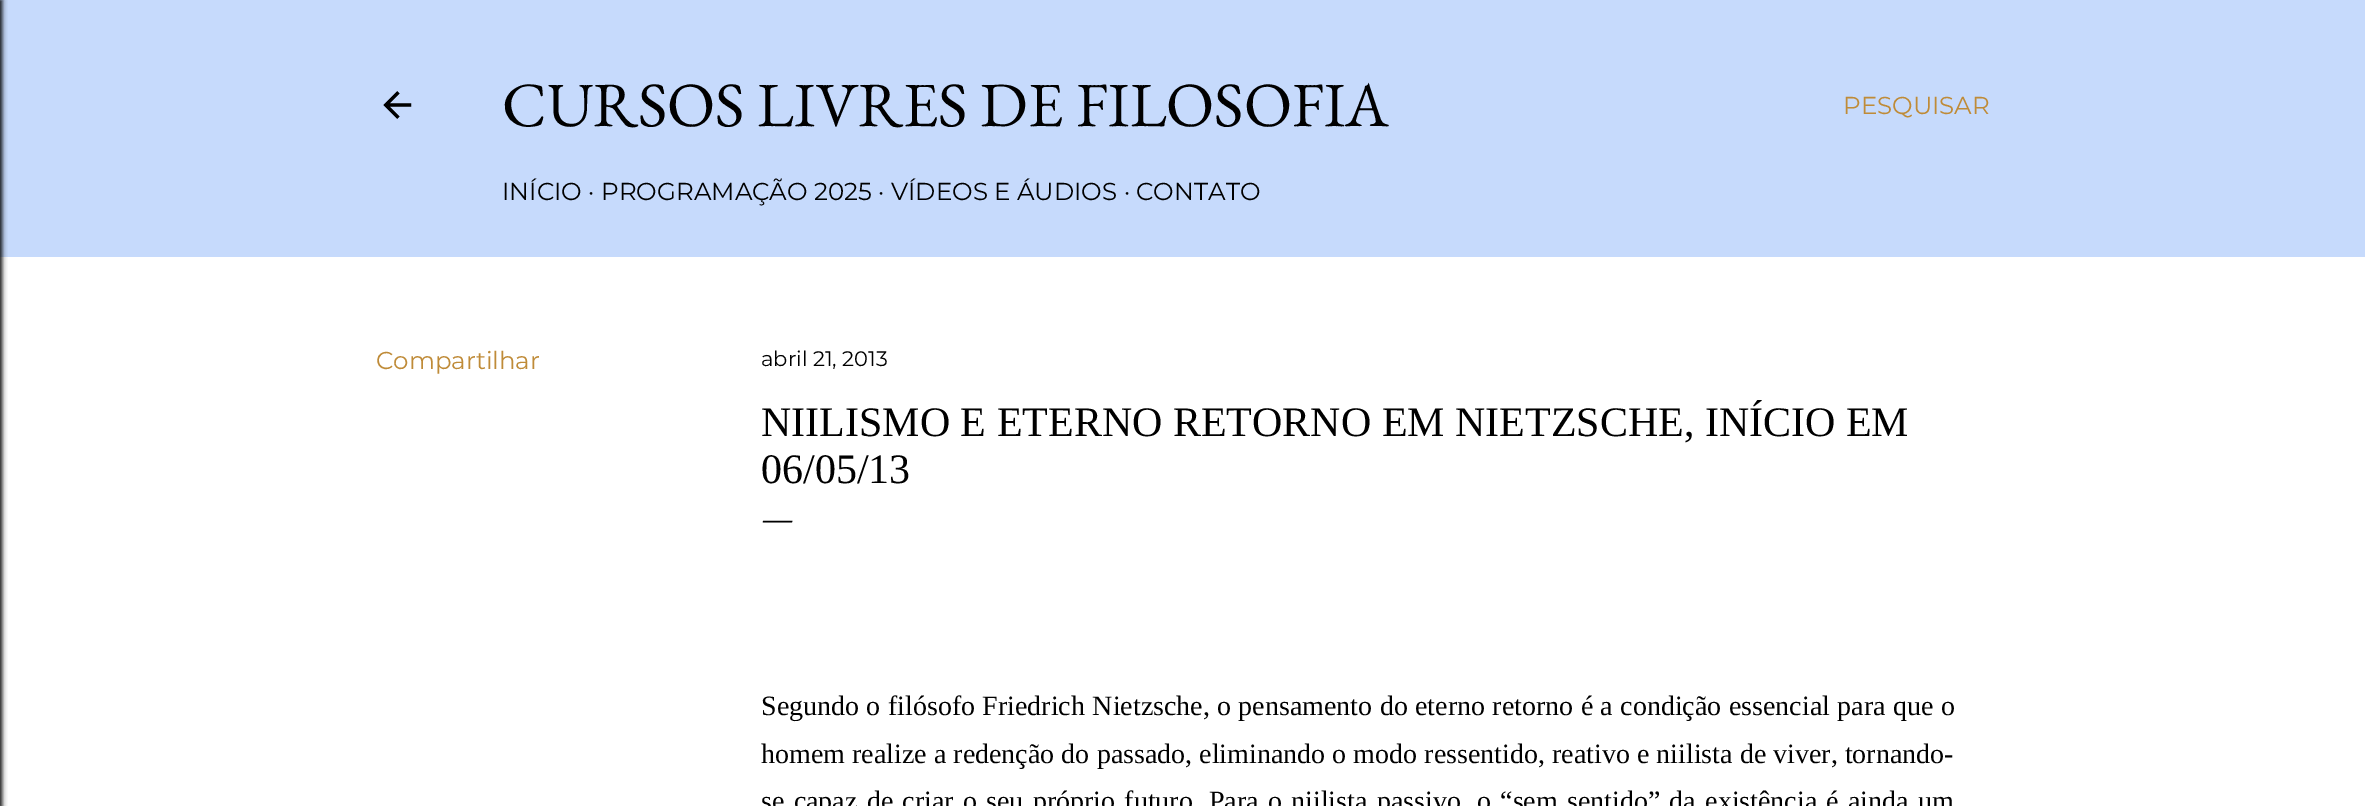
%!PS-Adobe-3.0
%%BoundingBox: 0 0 2365 806
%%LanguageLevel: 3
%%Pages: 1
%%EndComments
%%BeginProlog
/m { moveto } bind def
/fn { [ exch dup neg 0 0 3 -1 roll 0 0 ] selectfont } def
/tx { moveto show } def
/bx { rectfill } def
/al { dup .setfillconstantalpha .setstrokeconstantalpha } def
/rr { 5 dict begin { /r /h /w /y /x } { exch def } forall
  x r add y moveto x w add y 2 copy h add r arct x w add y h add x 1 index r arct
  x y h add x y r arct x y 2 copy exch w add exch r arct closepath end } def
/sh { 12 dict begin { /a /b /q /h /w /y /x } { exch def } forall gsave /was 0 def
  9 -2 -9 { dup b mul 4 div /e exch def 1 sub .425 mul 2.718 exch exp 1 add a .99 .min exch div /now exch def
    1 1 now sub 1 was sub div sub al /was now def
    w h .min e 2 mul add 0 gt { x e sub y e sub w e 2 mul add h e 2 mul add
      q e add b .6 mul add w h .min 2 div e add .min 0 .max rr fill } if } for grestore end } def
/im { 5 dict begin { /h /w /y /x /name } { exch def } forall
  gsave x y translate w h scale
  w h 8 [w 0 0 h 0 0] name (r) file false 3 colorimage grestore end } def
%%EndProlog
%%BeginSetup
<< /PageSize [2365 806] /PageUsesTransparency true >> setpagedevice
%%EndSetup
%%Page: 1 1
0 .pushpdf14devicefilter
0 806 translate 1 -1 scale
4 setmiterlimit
1 setgray
0 0 2365 806 bx
0.776 0.855 0.988 setrgbcolor
0 0 2365 257 bx
0 setgray
-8 0 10 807 0 2.5 1 sh
(image0.raw) 383 91 29 28 im
/EBGaramond-Regular 63 fn
(CURSOS LIVRES DE FILOSOFIA) 502 126 tx
/Montserrat-Regular 24.5 fn
(INÍCIO · PROGRAMAÇÃO 2025 · VÍDEOS E ÁUDIOS · CONTATO) 502 200 tx
0.749 0.545 0.22 setrgbcolor
(PESQUISAR) 1843 114 tx
(Compartilhar) 376 369 tx
/Montserrat-Regular 21 fn
0 setgray
(abril 21, 2013) 761 366 tx
/LiberationSerif-Regular 42 fn
(NIILISMO E ETERNO RETORNO EM NIETZSCHE, INÍCIO EM) 761 436 tx
(06/05/13) 761 483 tx
/EBGaramond-Regular 35 fn
(—) 761 529 tx
/LiberationSerif-Regular 28 fn
761 715 m 0.4 0 32 (Segundo o filósofo Friedrich Nietzsche, o pensamento do eterno retorno é a condição essencial para que o) widthshow
761 763 m 0.1 0 32 (homem realize a redenção do passado, eliminando o modo ressentido, reativo e niilista de viver, tornando-) widthshow
761 810 m 2.25 0 32 (se capaz de criar o seu próprio futuro. Para o niilista passivo, o “sem sentido” da existência é ainda um) widthshow
.poppdf14devicefilter showpage
%%EOF
